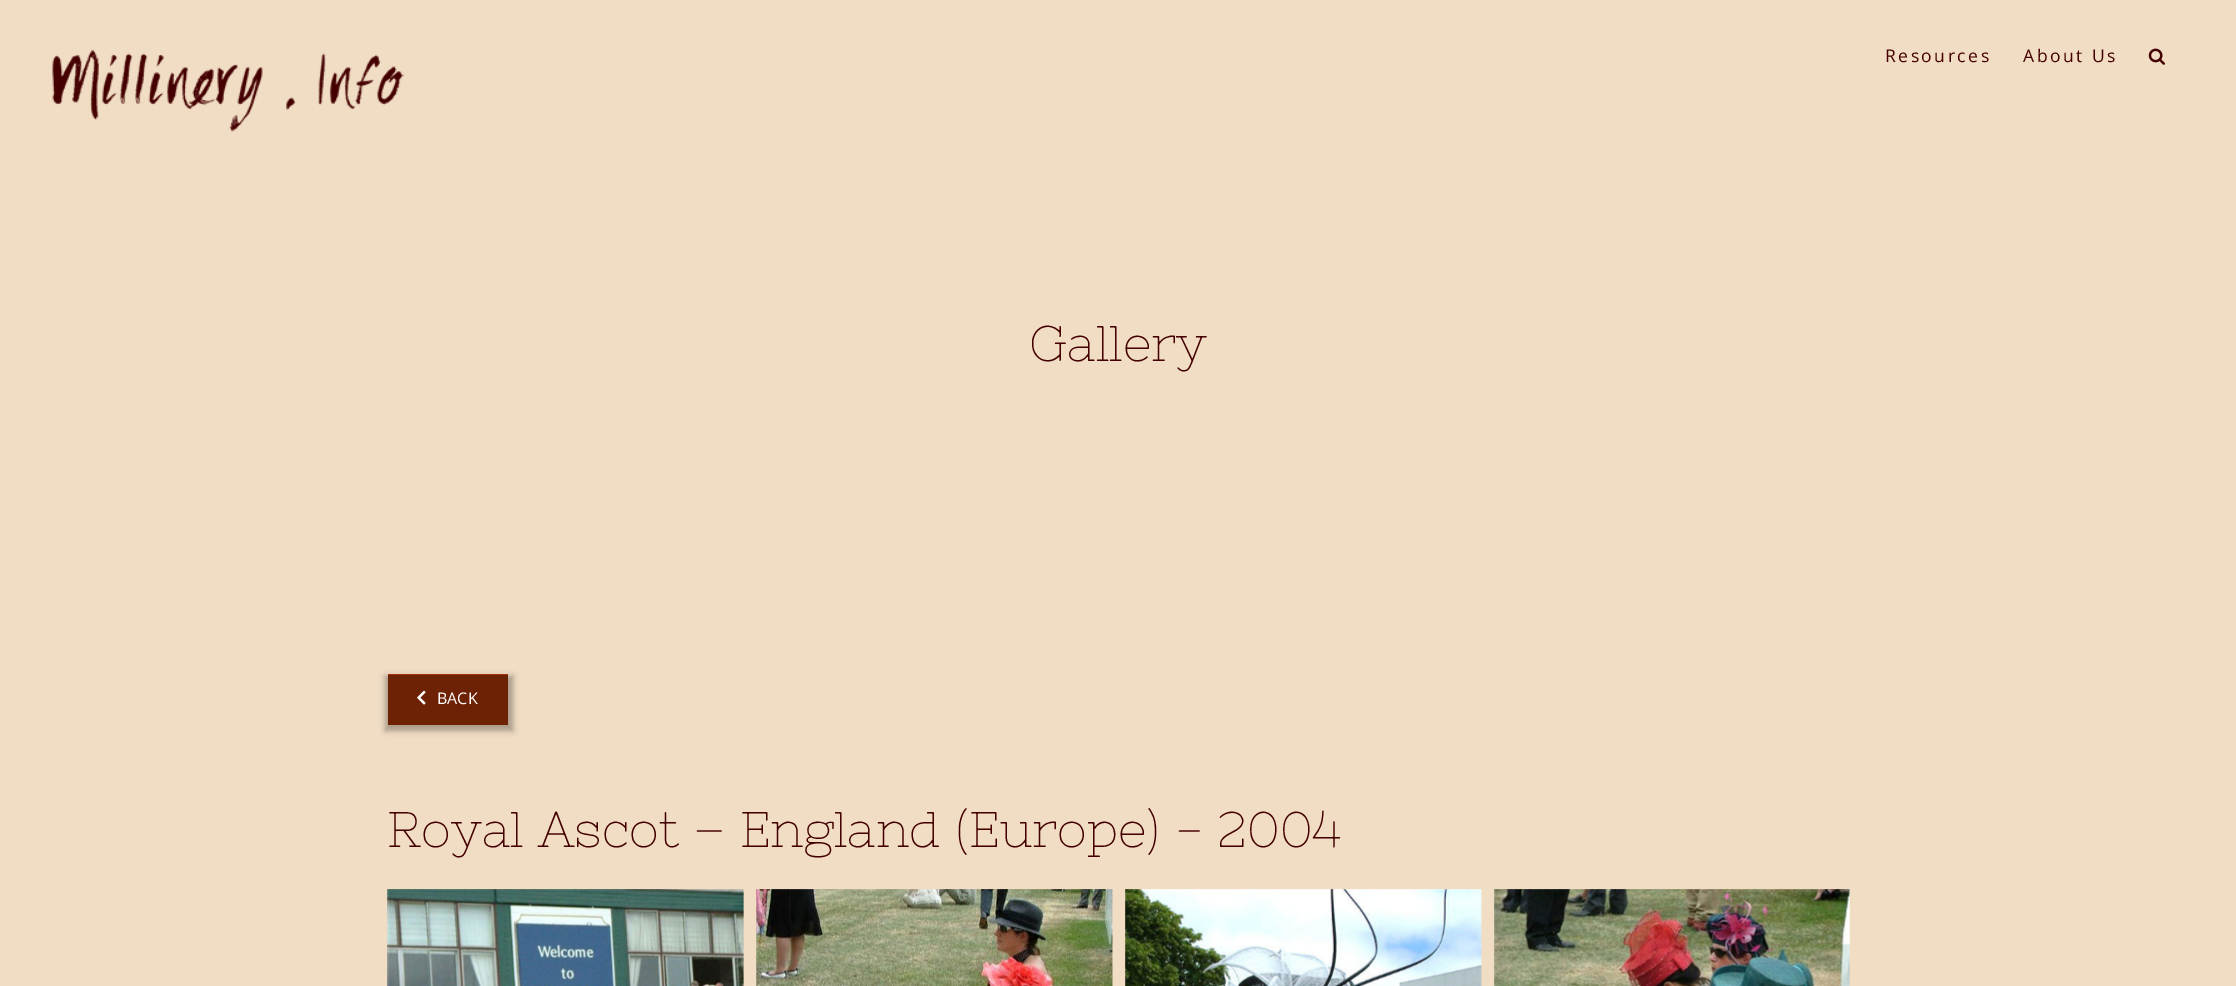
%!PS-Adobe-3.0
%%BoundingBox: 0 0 2236 986
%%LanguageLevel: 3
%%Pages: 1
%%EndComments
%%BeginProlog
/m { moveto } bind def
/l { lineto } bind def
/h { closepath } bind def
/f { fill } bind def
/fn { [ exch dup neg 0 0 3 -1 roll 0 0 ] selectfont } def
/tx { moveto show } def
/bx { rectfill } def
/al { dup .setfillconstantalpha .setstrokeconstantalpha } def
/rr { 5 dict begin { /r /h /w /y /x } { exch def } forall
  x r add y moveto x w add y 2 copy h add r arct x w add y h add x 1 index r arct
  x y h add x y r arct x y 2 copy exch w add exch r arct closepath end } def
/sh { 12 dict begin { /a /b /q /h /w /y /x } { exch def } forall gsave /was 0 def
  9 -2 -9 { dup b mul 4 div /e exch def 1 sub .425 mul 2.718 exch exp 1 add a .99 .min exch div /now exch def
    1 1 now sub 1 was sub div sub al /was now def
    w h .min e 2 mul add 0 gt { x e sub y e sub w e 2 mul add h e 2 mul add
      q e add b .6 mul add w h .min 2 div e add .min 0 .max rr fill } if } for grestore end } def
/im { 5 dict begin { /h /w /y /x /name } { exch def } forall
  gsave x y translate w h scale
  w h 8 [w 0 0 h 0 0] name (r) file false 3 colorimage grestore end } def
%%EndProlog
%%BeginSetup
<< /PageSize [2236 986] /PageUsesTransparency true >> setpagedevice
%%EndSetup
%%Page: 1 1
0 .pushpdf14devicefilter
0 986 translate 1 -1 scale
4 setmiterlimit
0.945 0.867 0.769 setrgbcolor
0 0 2236 986 bx
(image0.raw) 52 49 352 83 im
/OpenSans-Regular 17.5 fn
0.267 0 0 setrgbcolor
1885 62 m 2.5 0 (Resources) ashow
2023 62 m 2.5 0 (About Us) ashow
(image1.raw) 2148 48 17 17 im
/NixieOne-Regular 50 fn
(Gallery) 1029 361 tx
0 setgray
385 676 128 55 0 3 0.3 sh
0.427 0.129 0.02 setrgbcolor
388 721 m 388 725 l 508 725 l 508 678 l 508 721 l h f
388 675 120 46 bx
0.647 0.192 0.024 setrgbcolor
388 674 120 1 bx
(image2.raw) 417 690 9 15 im
/OpenSans-Regular 16 fn
1 setgray
(BACK) 437 704 tx
/NixieOne-Regular 50 fn
0.267 0 0 setrgbcolor
(Royal Ascot – England \(Europe\) - 2004) 387 847 tx
(image3.raw) 387 889 357 97 im
(image4.raw) 756 889 357 97 im
(image5.raw) 1125 889 357 97 im
(image6.raw) 1494 889 356 97 im
.poppdf14devicefilter showpage
%%EOF
